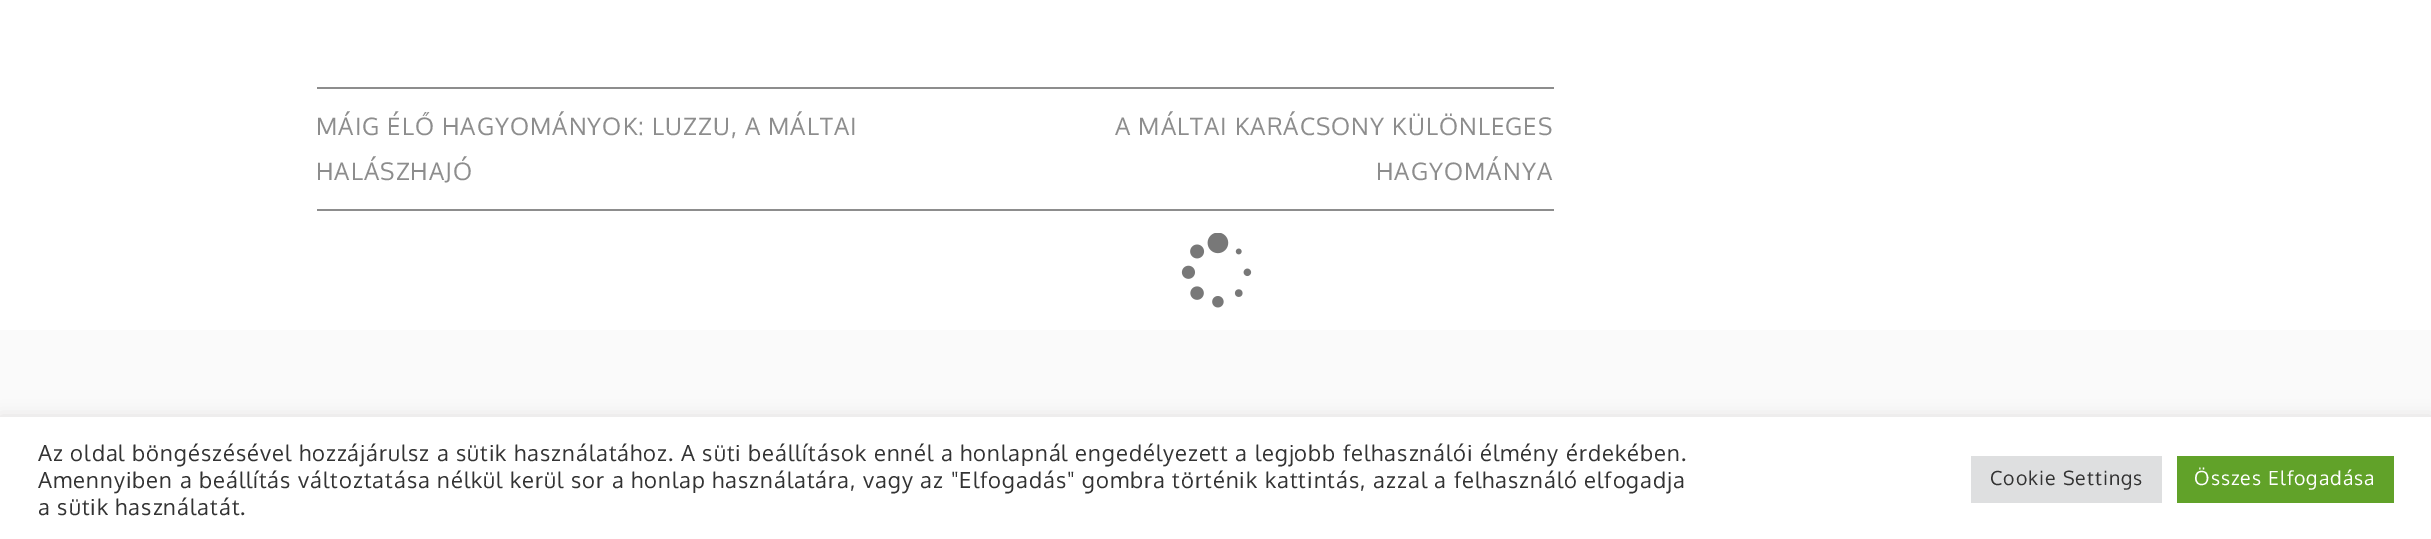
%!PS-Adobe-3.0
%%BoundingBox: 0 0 2431 539
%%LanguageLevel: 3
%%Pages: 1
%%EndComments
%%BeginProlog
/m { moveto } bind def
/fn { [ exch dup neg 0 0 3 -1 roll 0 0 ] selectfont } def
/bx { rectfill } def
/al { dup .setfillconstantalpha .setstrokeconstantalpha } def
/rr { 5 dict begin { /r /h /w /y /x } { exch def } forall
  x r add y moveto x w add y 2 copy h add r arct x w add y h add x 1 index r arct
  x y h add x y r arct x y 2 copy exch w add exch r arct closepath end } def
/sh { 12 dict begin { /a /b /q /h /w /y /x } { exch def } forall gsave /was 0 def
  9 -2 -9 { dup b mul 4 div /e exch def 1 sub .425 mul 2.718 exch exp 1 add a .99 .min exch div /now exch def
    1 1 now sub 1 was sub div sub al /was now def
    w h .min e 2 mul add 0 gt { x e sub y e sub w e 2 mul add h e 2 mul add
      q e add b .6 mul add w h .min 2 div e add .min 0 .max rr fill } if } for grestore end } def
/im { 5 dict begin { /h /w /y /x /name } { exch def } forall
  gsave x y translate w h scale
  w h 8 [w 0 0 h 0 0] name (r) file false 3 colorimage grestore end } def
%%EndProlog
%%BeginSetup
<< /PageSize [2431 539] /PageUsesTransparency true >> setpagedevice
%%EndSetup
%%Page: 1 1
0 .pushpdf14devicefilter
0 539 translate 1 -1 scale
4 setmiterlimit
1 setgray
0 0 2431 539 bx
0.553 setgray
317 87 1237 2 bx
317 209 1237 2 bx
/Oxygen-Regular 24 fn
316 135 m 1.05 0 (MÁIG ÉLŐ HAGYOMÁNYOK: LUZZU, A MÁLTAI) ashow
316 180 m 1.05 0 (HALÁSZHAJÓ) ashow
1115 135 m 1.05 0 (A MÁLTAI KARÁCSONY KÜLÖNLEGES) ashow
1376 180 m 1.05 0 (HAGYOMÁNYA) ashow
(image0.raw) 1181 233 71 75 im
0.98 setgray
0 330 2431 87 bx
0.675 0.671 0.671 setrgbcolor
0 416 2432 123 0 7.5 0.3 sh
1 setgray
0 417 2431 122 bx
/Oxygen-Regular 22 fn
0.2 setgray
38 461 m 1.05 0 (Az oldal böngészésével hozzájárulsz a sütik használatához. A süti beállítások ennél a honlapnál engedélyezett a legjobb felhasználói élmény érdekében.) ashow
38 488 m 1.05 0 (Amennyiben a beállítás változtatása nélkül kerül sor a honlap használatára, vagy az "Elfogadás" gombra történik kattintás, azzal a felhasználó elfogadja) ashow
38 515 m 1.05 0 (a sütik használatát.) ashow
0.871 0.875 0.878 setrgbcolor
1971 456 191 47 bx
/Oxygen-Regular 19.5 fn
0.2 setgray
1990 485 m 1.05 0 (Cookie Settings) ashow
0.38 0.635 0.161 setrgbcolor
2177 456 217 47 bx
1 setgray
2194 485 m 1.05 0 (Összes Elfogadása) ashow
.poppdf14devicefilter showpage
%%EOF
